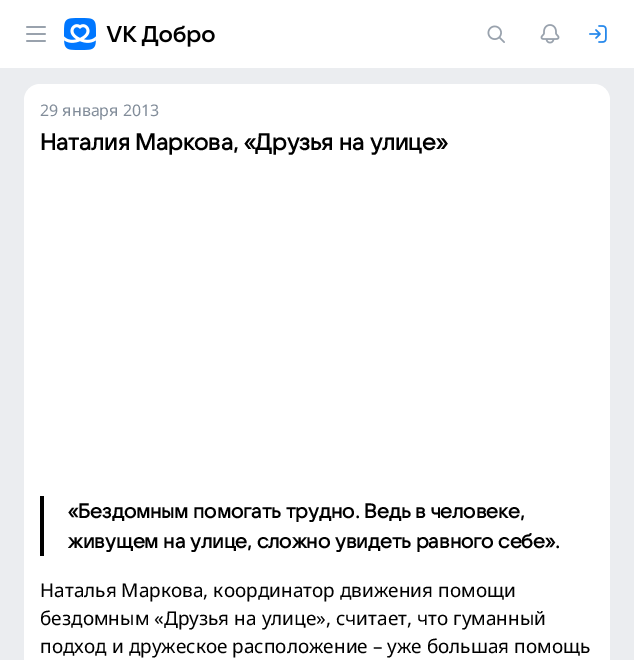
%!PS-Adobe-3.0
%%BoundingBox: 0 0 634 660
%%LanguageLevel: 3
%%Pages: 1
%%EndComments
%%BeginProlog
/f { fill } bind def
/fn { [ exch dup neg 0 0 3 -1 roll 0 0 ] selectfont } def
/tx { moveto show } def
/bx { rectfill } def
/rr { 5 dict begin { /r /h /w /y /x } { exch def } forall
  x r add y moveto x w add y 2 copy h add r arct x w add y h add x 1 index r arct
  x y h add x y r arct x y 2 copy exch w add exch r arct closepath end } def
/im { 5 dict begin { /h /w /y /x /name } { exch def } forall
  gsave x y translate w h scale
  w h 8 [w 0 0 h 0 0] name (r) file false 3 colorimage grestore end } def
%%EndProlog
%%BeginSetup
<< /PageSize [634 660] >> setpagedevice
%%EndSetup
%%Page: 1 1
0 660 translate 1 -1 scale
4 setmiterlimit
0.922 0.929 0.941 setrgbcolor
0 0 634 660 bx
1 setgray
0 0 634 68 bx
(image0.raw) 26 26 20 16 im
(image1.raw) 64 18 151 32 im
(image2.raw) 487 25 18 18 im
(image3.raw) 540 24 20 20 im
(image4.raw) 589 25 18 18 im
24 84 586 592 16 rr f
/NotoSans-Regular 16 fn
0.506 0.549 0.6 setrgbcolor
(29 января 2013) 40 116 tx
/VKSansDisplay-Bold 23 fn
0 setgray
(Наталия Маркова, «Друзья на улице») 40 150 tx
40 496 4 60 bx
/VKSansDisplay-Bold 20 fn
(«Бездомным помогать трудно. Ведь в человеке,) 68 518 tx
(живущем на улице, сложно увидеть равного себе».) 68 548 tx
/NotoSans-Regular 19 fn
(Наталья Маркова, координатор движения помощи) 40 597 tx
(бездомным «Друзья на улице», считает, что гуманный) 40 625 tx
(подход и дружеское расположение – уже большая помощь) 40 653 tx
showpage
%%EOF
